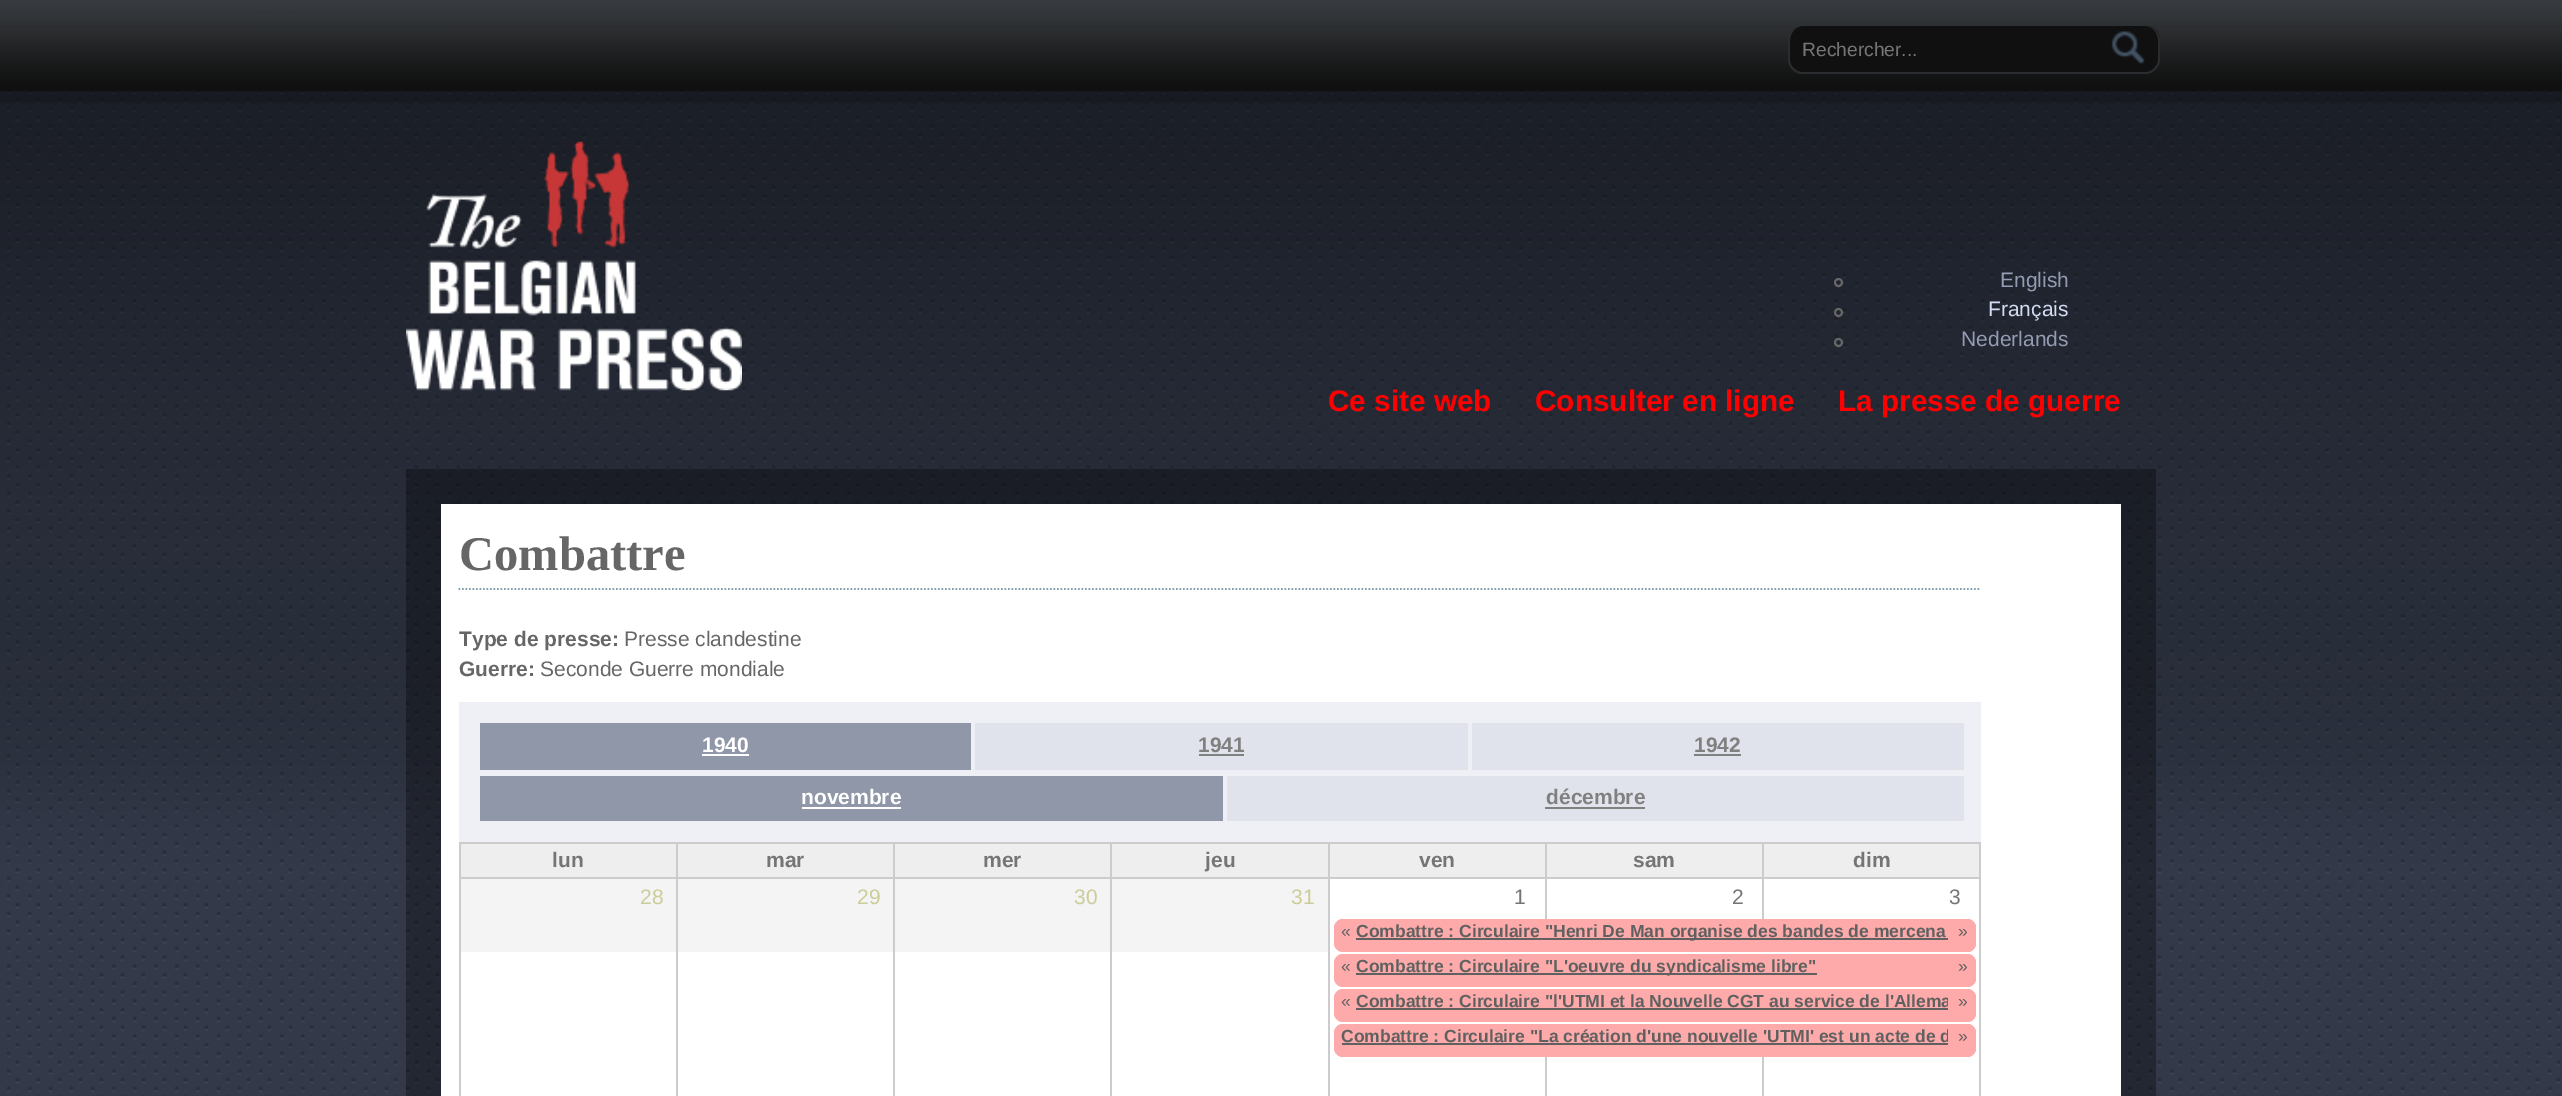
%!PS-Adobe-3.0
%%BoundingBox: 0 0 2562 1096
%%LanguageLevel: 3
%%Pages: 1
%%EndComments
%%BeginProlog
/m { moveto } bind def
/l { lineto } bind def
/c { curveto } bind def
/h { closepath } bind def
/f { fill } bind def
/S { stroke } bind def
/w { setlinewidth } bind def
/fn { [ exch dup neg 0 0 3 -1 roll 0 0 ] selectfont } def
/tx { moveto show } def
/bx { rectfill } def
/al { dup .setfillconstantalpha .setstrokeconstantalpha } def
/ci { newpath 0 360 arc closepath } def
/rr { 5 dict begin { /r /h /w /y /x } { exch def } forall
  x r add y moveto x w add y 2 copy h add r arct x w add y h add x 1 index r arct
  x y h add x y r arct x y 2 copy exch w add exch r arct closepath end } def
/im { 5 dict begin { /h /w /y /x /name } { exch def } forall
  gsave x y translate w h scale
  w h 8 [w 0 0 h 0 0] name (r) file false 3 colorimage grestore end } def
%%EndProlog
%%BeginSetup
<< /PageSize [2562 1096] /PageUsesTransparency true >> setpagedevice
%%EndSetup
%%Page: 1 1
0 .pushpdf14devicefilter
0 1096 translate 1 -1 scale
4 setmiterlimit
1 setgray
0 0 2562 1096 bx
(image0.raw) 0 0 2562 1096 im
0.063 0.063 0.067 setrgbcolor
1789 26 371 48 14 rr f
0.161 0.176 0.188 setrgbcolor
1802 26 m 2146 26 l 2153 26 2160 33 2160 40 c 2160 60 l 2160 67 2153 74 2146 74 c 1802 74 l 1795 74 1788 67 1788 60 c 1788 40 l 1788 33 1795 26 1802 26 c h 1802 26 m 2146 26 l 2152 26 2158 33 2158 40 c 2158 60 l 2158 66 2152 72 2146 72 c 1802 72 l 1796 72 1790 66 1790 60 c 1790 40 l 1790 33 1796 26 1802 26 c h eofill
/LiberationSans-Regular 19.25 fn
0.459 setgray
(Rechercher...) 1802 56 tx
(image1.raw) 2111 31 34 33 im
0.4 setgray
2 w
1838.5 282.5 3.5 ci S
/LiberationSans-Regular 21 fn
0.58 0.612 0.702 setrgbcolor
(English) 2000 287 tx
0.4 setgray
1838.5 312.5 3.5 ci S
0.831 0.863 0.953 setrgbcolor
(Français) 1988 316 tx
0.4 setgray
1838.5 342.5 3.5 ci S
0.58 0.612 0.702 setrgbcolor
(Nederlands) 1961 346 tx
(image2.raw) 406 141 336 250 im
/LiberationSans-Bold 29.75 fn
1 0 0 setrgbcolor
(Ce site web) 1328 411 tx
(Consulter en ligne) 1535 411 tx
(La presse de guerre) 1838 411 tx
0.32 al
0 setgray
406 469 1750 627 bx
1 al
1 setgray
441 504 1680 592 bx
0.518 0.631 0.686 setrgbcolor
1.8 w
[1.75 1.75] 0 setdash
458.5 589 m 1981 589 l S
/LiberationSerif-Bold 48.5 fn
0.4 setgray
(Combattre) 459 570 tx
/LiberationSans-Bold 21 fn
(Type de presse:) 459 646 tx
/LiberationSans-Regular 21 fn
(Presse clandestine) 624 646 tx
/LiberationSans-Bold 21 fn
(Guerre:) 459 676 tx
/LiberationSans-Regular 21 fn
(Seconde Guerre mondiale) 540 676 tx
0.933 0.941 0.961 setrgbcolor
459 702 1522 140 bx
0.565 0.592 0.663 setrgbcolor
480 723 491 47 bx
/LiberationSans-Bold 21 fn
1 setgray
(1940) 702 752 tx
702 754 47 2 bx
0.878 0.89 0.922 setrgbcolor
975 723 493 47 bx
0.502 setgray
(1941) 1198 752 tx
1199 754 45 2 bx
0.878 0.89 0.922 setrgbcolor
1472 723 492 47 bx
0.502 setgray
(1942) 1694 752 tx
1694 754 47 2 bx
0.565 0.592 0.663 setrgbcolor
480 776 743 45 bx
1 setgray
(novembre) 801 804 tx
802 807 99 2 bx
0.878 0.89 0.922 setrgbcolor
1227 776 737 45 bx
0.502 setgray
(décembre) 1546 804 tx
1545 807 100 2 bx
0.933 setgray
461 844 215 33 bx
0.8 setgray
1762 842 219 2 bx
1762 877 219 2 bx
1762 877 2 42 bx
1545 877 219 2 bx
1762 842 2 37 bx
1545 842 219 2 bx
1545 877 2 42 bx
1328 877 219 2 bx
1545 842 2 37 bx
1328 842 219 2 bx
1328 917 2 179 bx
1328 877 2 42 bx
1110 877 220 2 bx
1328 842 2 37 bx
1110 842 220 2 bx
1110 917 2 179 bx
1110 877 2 42 bx
893 877 218 2 bx
1110 842 2 37 bx
893 842 218 2 bx
893 917 2 179 bx
893 877 2 42 bx
676 877 218 2 bx
893 842 2 37 bx
676 842 218 2 bx
676 917 2 179 bx
676 877 2 42 bx
459 877 218 2 bx
676 842 2 37 bx
459 842 218 2 bx
459 917 2 179 bx
459 877 2 42 bx
459 842 2 37 bx
0.459 setgray
(lun) 552 867 tx
0.933 setgray
678 844 215 33 bx
0.459 setgray
(mar) 766 867 tx
0.933 setgray
895 844 215 33 bx
0.459 setgray
(mer) 983 867 tx
0.933 setgray
1112 844 216 33 bx
0.459 setgray
(jeu) 1205 867 tx
0.933 setgray
1330 844 215 33 bx
0.459 setgray
(ven) 1419 867 tx
0.933 setgray
1547 844 215 33 bx
0.459 setgray
(sam) 1633 867 tx
0.933 setgray
1764 844 215 33 bx
0.8 setgray
1979 917 2 179 bx
1979 877 2 42 bx
1979 842 2 37 bx
0.459 setgray
(dim) 1853 867 tx
0.957 setgray
461 879 215 73 bx
/LiberationSans-Regular 21 fn
0.8 0.8 0.6 setrgbcolor
(28) 640 904 tx
0.957 setgray
678 879 215 73 bx
0.8 0.8 0.6 setrgbcolor
(29) 857 904 tx
0.957 setgray
895 879 215 73 bx
0.8 0.8 0.6 setrgbcolor
(30) 1074 904 tx
0.957 setgray
1112 879 216 73 bx
0.8 0.8 0.6 setrgbcolor
(31) 1291 904 tx
0.459 setgray
(1) 1514 904 tx
(2) 1732 904 tx
(3) 1949 904 tx
0.8 setgray
1545 1057 2 39 bx
1762 1057 2 39 bx
1 0.667 0.667 setrgbcolor
1334 919 642 33 9 rr f
/LiberationSans-Regular 17.5 fn
0.376 setgray
(«) 1341 937 tx
1356 938 592 2 bx
/LiberationSans-Bold 17.5 fn
(Combattre : Circulaire "Henri De Man organise des bandes de mercena) 1356 937 tx
1 0.667 0.667 setrgbcolor
1948 919 m 1967 919 l 1972 919 1976 923 1976 928 c 1976 943 l 1976 948 1972 952 1967 952 c 1948 952 l h f
/LiberationSans-Regular 17.5 fn
0.376 setgray
(») 1958 937 tx
1 0.667 0.667 setrgbcolor
1334 954 642 33 9 rr f
0.376 setgray
(«) 1341 972 tx
1356 973 461 2 bx
/LiberationSans-Bold 17.5 fn
(Combattre : Circulaire "L'oeuvre du syndicalisme libre") 1356 972 tx
1 0.667 0.667 setrgbcolor
1948 954 m 1967 954 l 1972 954 1976 958 1976 963 c 1976 978 l 1976 983 1972 987 1967 987 c 1948 987 l h f
/LiberationSans-Regular 17.5 fn
0.376 setgray
(») 1958 972 tx
1 0.667 0.667 setrgbcolor
1334 989 642 33 9 rr f
0.376 setgray
(«) 1341 1007 tx
/LiberationSans-Bold 17.5 fn
(Combattre : Circulaire "l'UTMI et la Nouvelle CGT au service de l'Allema) 1356 1007 tx
1356 1008 592 2 bx
1 0.667 0.667 setrgbcolor
1948 989 m 1967 989 l 1972 989 1976 993 1976 998 c 1976 1013 l 1976 1018 1972 1022 1967 1022 c 1948 1022 l h f
/LiberationSans-Regular 17.5 fn
0.376 setgray
(») 1958 1007 tx
1 0.667 0.667 setrgbcolor
1334 1024 642 33 9 rr f
/LiberationSans-Bold 17.5 fn
0.376 setgray
(Combattre : Circulaire "La création d'une nouvelle 'UTMI' est un acte de d) 1341 1042 tx
1342 1043 606 2 bx
1 0.667 0.667 setrgbcolor
1948 1024 m 1967 1024 l 1972 1024 1976 1028 1976 1033 c 1976 1048 l 1976 1053 1972 1057 1967 1057 c 1948 1057 l h f
/LiberationSans-Regular 17.5 fn
0.376 setgray
(») 1958 1042 tx
.poppdf14devicefilter showpage
%%EOF
